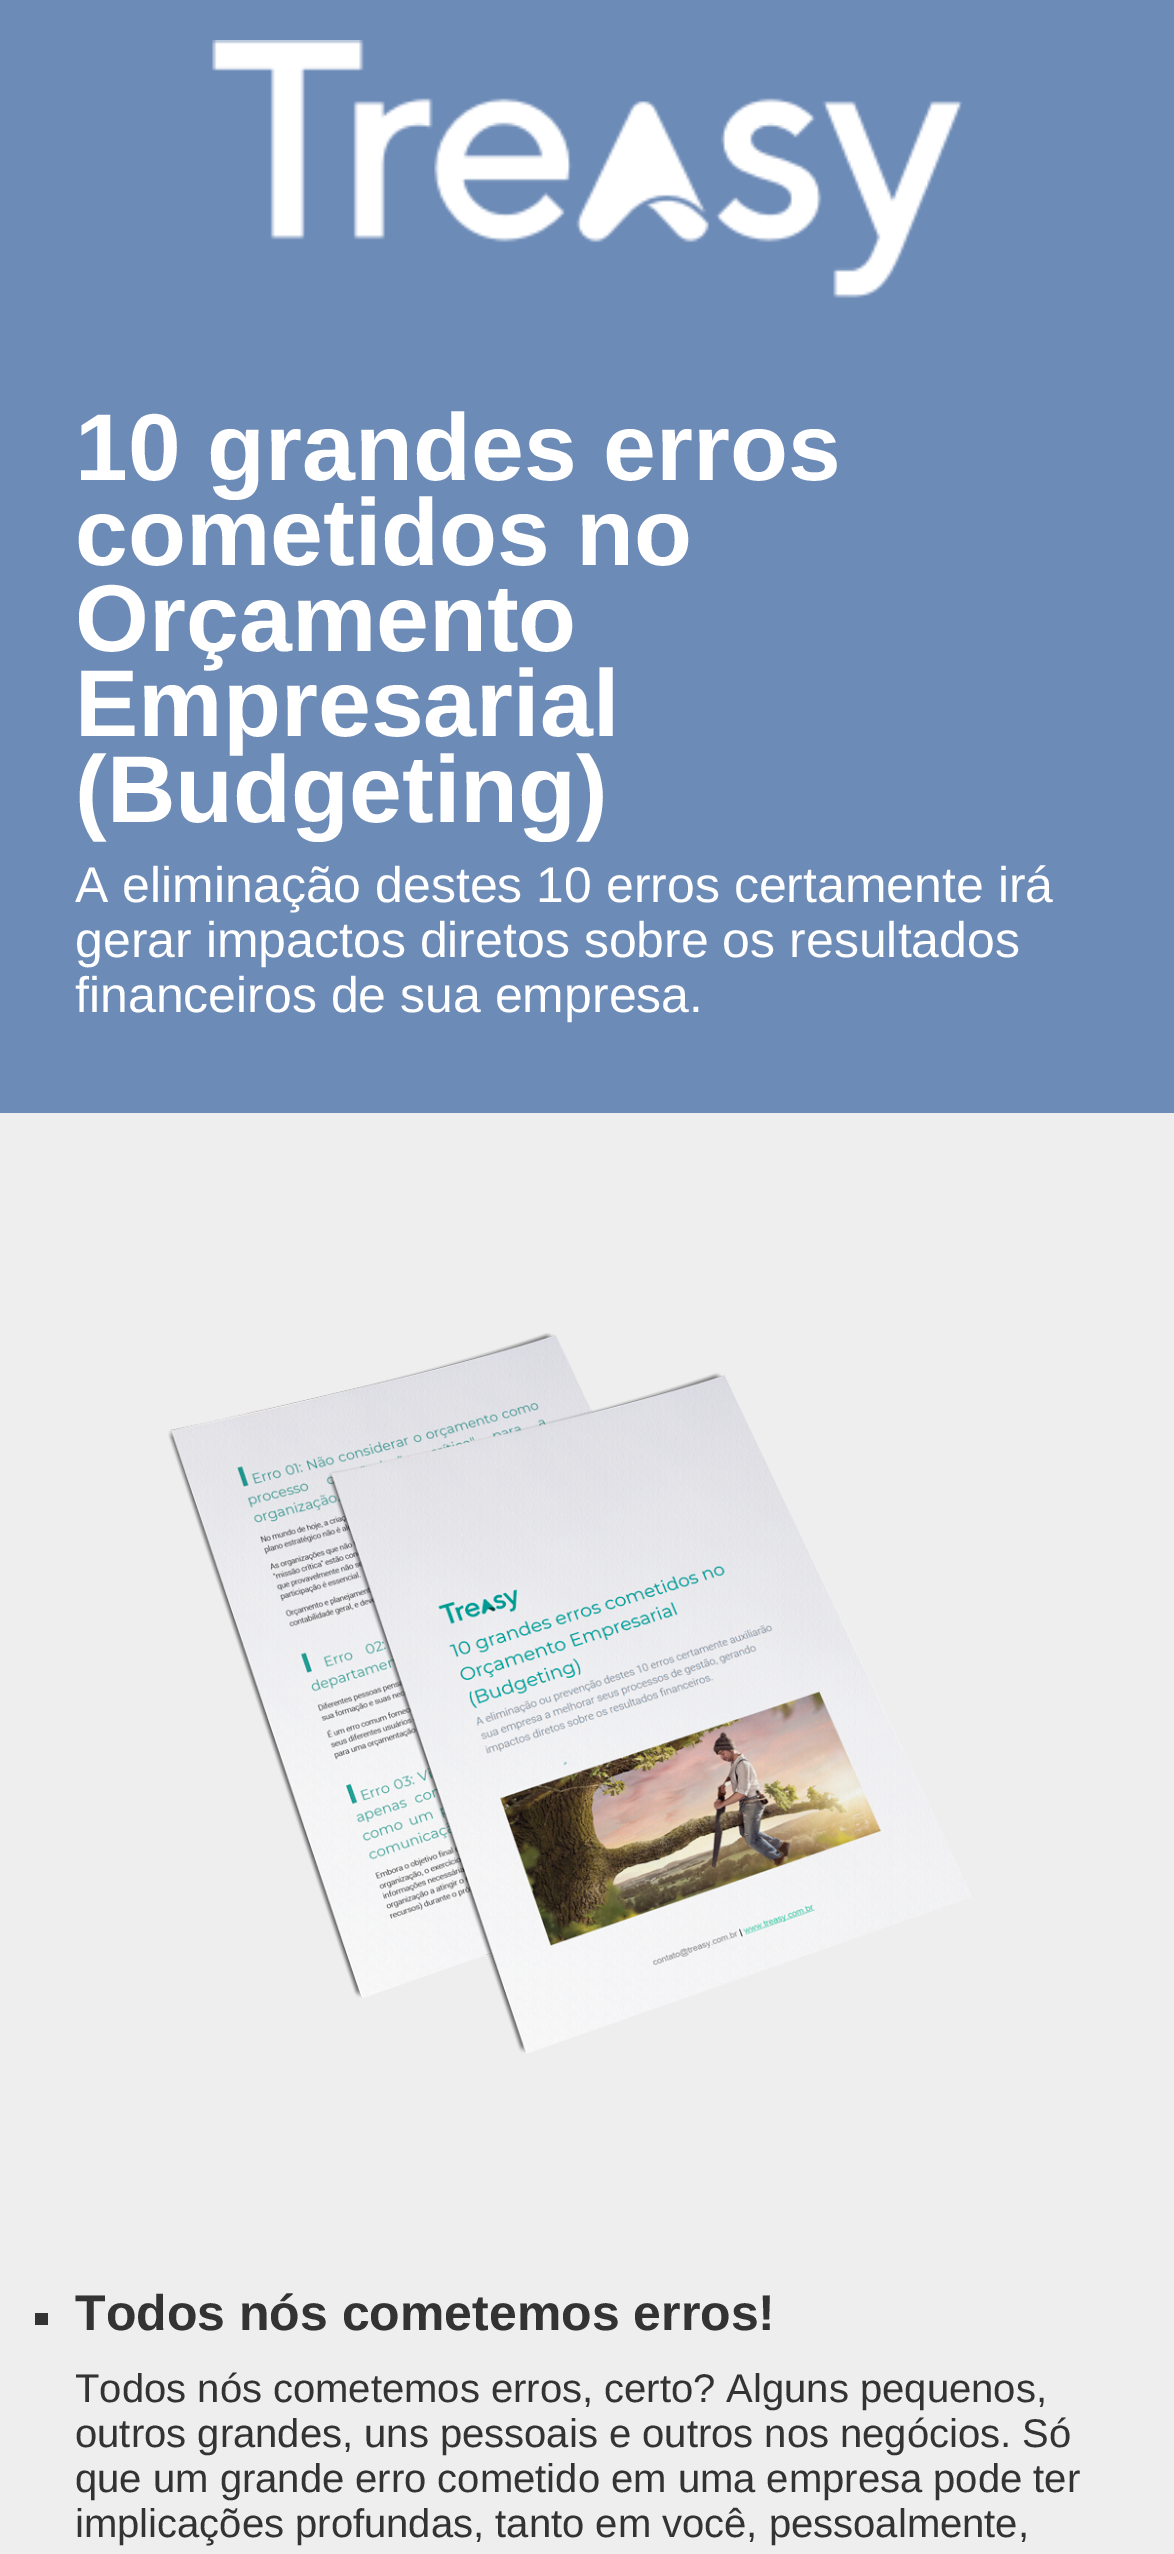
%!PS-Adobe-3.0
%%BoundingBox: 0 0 1174 2554
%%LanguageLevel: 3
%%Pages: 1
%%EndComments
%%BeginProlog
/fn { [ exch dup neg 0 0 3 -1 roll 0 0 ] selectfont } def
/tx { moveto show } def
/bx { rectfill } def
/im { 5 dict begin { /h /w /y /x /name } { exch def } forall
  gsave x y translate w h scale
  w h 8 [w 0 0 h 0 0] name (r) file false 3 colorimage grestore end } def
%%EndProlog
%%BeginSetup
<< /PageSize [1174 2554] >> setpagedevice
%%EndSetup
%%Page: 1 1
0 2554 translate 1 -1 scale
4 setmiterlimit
0.427 0.545 0.718 setrgbcolor
0 0 1174 2554 bx
(image0.raw) 212 40 751 258 im
/LiberationSans-Bold 95 fn
1 setgray
(10 grandes erros) 75 480 tx
(cometidos no) 75 565 tx
(Orçamento) 75 651 tx
(Empresarial) 75 736 tx
(\(Budgeting\)) 75 822 tx
/LiberationSans-Regular 50 fn
(A eliminação destes 10 erros certamente irá) 75 902 tx
(gerar impactos diretos sobre os resultados) 75 957 tx
(financeiros de sua empresa.) 75 1012 tx
0.933 setgray
0 1113 1174 1441 bx
(image1.raw) 168 1333 803 721 im
0.2 setgray
35 2313 13 12 bx
/LiberationSans-Bold 50 fn
(Todos nós cometemos erros!) 75 2330 tx
/LiberationSans-Regular 40 fn
(Todos nós cometemos erros, certo? Alguns pequenos,) 75 2402 tx
(outros grandes, uns pessoais e outros nos negócios. Só) 75 2447 tx
(que um grande erro cometido em uma empresa pode ter) 75 2492 tx
(implicações profundas, tanto em você, pessoalmente,) 75 2537 tx
showpage
%%EOF
